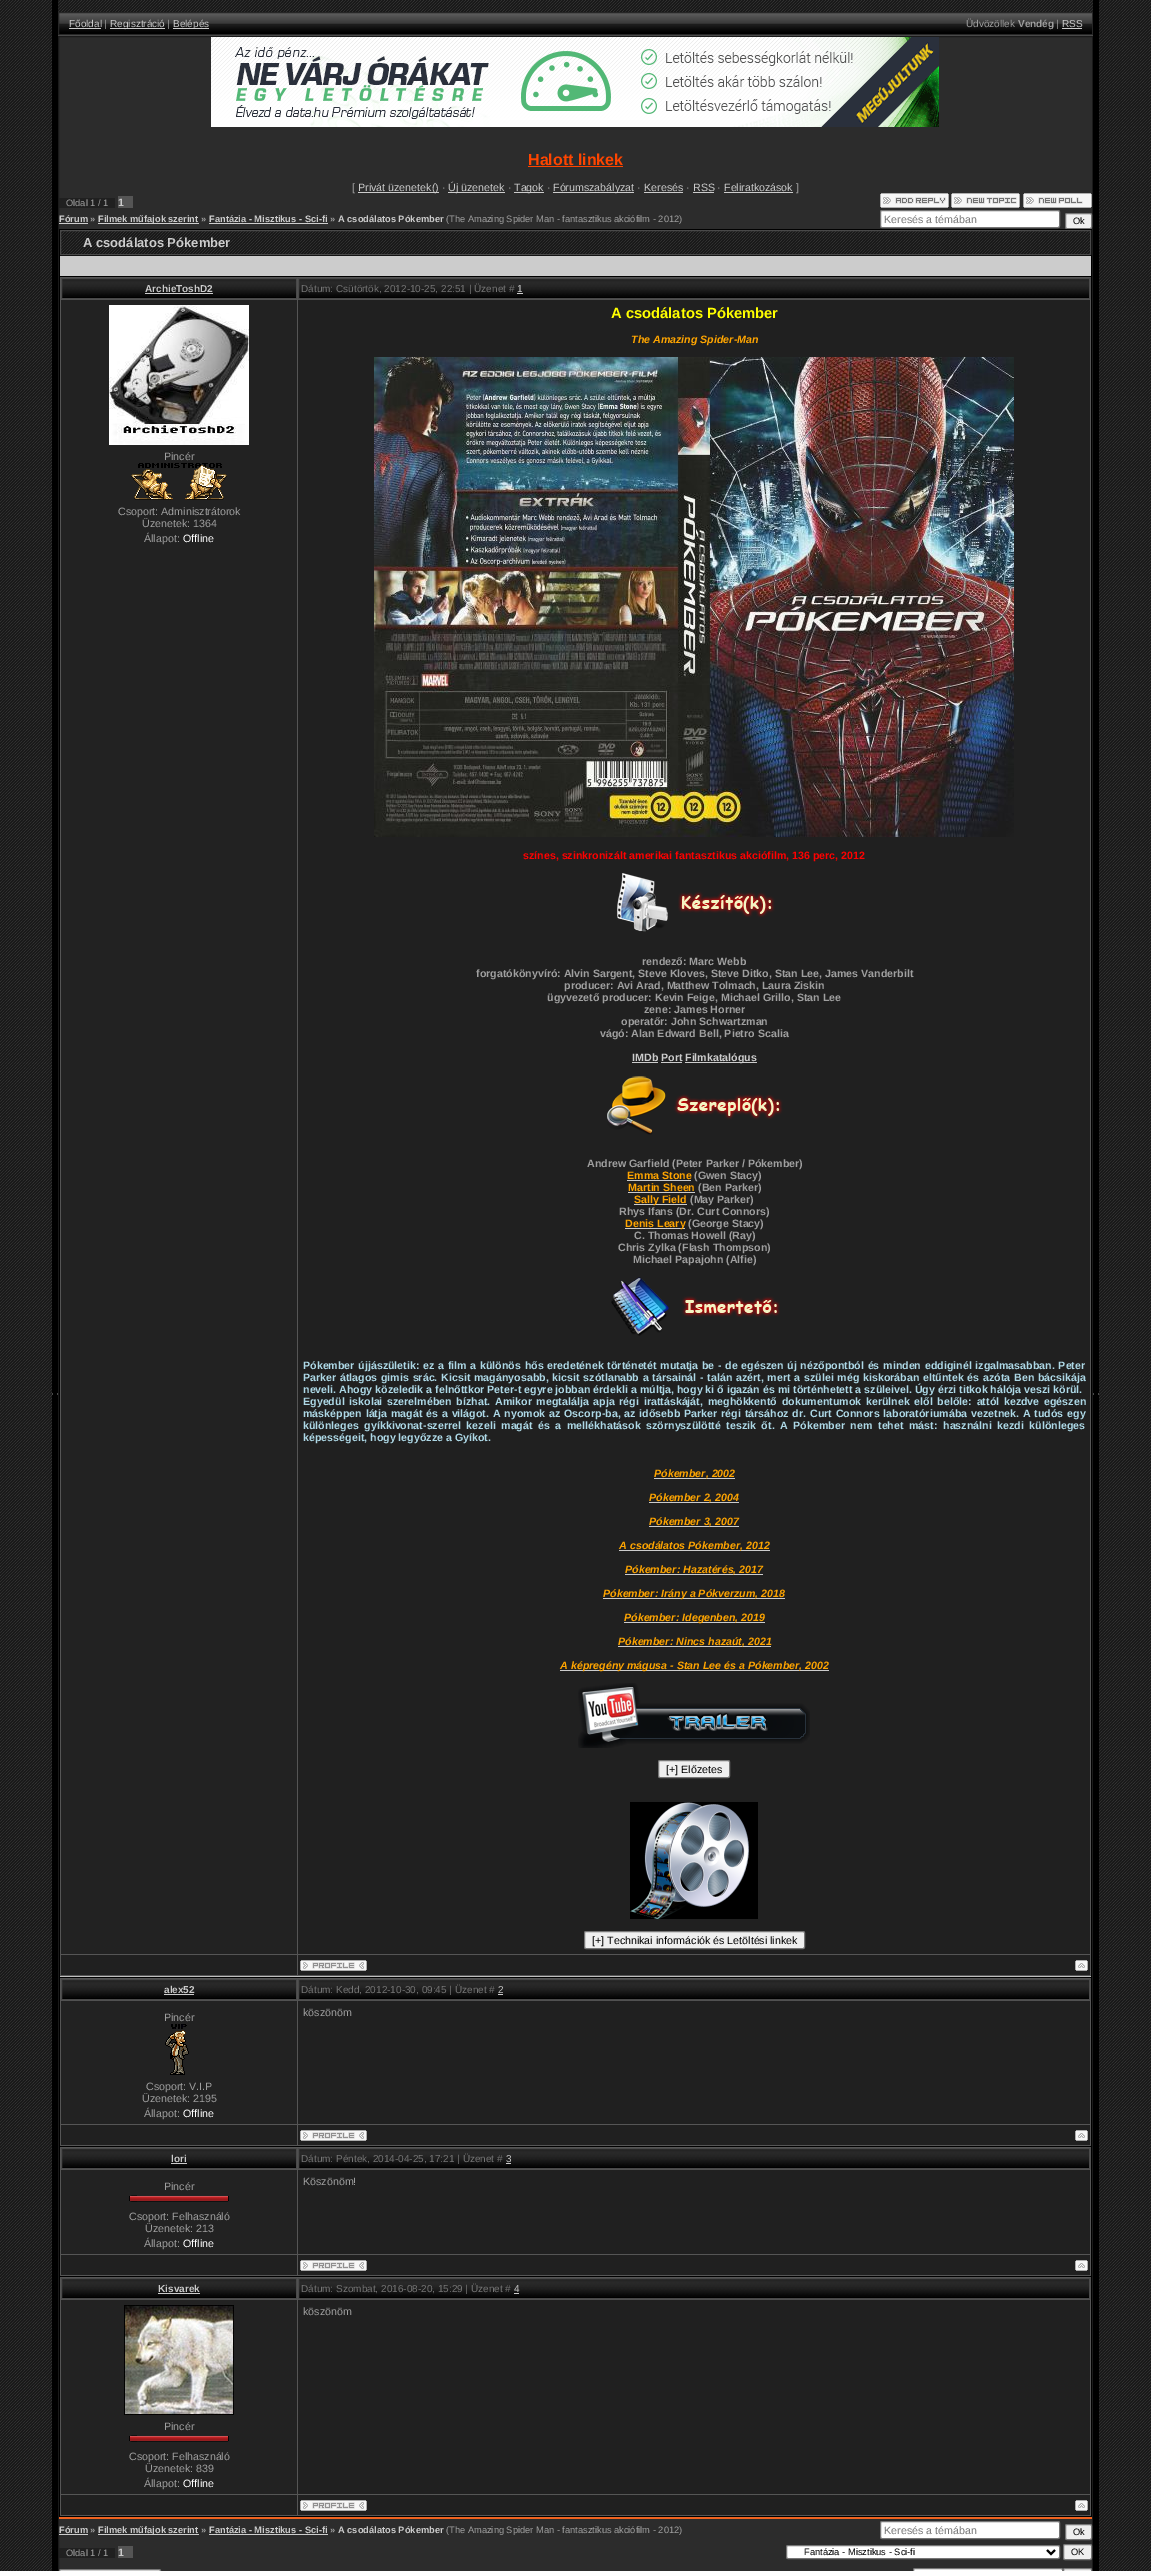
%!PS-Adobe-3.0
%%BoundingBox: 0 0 1151 2571
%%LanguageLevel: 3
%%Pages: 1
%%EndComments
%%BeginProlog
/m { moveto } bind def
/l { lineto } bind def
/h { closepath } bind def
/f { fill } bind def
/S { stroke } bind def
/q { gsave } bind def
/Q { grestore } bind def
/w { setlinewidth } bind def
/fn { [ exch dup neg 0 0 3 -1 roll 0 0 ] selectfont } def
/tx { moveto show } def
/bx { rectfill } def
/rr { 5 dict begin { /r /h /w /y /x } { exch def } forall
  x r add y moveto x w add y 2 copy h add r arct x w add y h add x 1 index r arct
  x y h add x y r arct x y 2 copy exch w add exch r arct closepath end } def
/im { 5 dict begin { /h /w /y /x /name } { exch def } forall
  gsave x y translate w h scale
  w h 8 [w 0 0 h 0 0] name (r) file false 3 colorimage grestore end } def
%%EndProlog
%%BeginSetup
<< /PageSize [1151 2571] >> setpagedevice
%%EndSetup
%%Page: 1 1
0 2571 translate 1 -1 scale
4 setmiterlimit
1 setgray
0 0 1151 2571 bx
(image0.raw) 0 0 1151 2571 im
0 setgray
52 0 6 2571 bx
(image1.raw) 52 1393 6 2 im
(image2.raw) 59 13 1033 21 im
0.149 setgray
58.5 12.5 1034 22 rectstroke
/LiberationSans-Regular 10 fn
0.8 setgray
(Főoldal) 69 27 tx
69 28 32 1 bx
0.624 setgray
(|) 104 27 tx
0.8 setgray
110 28 55 1 bx
(Regisztráció) 110 27 tx
0.624 setgray
(|) 167 27 tx
0.8 setgray
173 28 36 1 bx
(Belépés) 173 27 tx
0.624 setgray
(Üdvözöllek) 966 27 tx
/LiberationSans-Bold 10 fn
(Vendég) 1018 27 tx
/LiberationSans-Regular 10 fn
(|) 1056 27 tx
0.8 setgray
(RSS) 1062 27 tx
1062 28 20 1 bx
0.286 setgray
58 35 1035 1 bx
0.173 setgray
58.5 36.5 m 1092.5 36.5 l 1092.5 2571.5 l 58.5 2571.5 l h q f Q
0.102 setgray
S
(image3.raw) 211 37 728 90 im
/LiberationSans-Bold 16 fn
1 0.271 0 setrgbcolor
(Halott linkek) 528 165 tx
528 166 95 1 bx
/LiberationSans-Regular 10.67 fn
0.624 setgray
([) 352 191 tx
0.8 setgray
358 192 81 1 bx
(Privát üzenetek\(\)) 358 191 tx
0.624 setgray
(·) 442 191 tx
0.8 setgray
448 192 57 1 bx
(Új üzenetek) 448 191 tx
0.624 setgray
(·) 508 191 tx
0.8 setgray
514 192 30 1 bx
(Tagok) 514 191 tx
0.624 setgray
(·) 547 191 tx
0.8 setgray
553 192 81 1 bx
(Fórumszabályzat) 553 191 tx
0.624 setgray
(·) 637 191 tx
0.8 setgray
(Keresés) 644 191 tx
644 192 39 1 bx
0.624 setgray
(·) 686 191 tx
0.8 setgray
(RSS) 693 191 tx
693 192 21 1 bx
0.624 setgray
(·) 717 191 tx
0.8 setgray
(Feliratkozások) 724 191 tx
724 192 69 1 bx
0.624 setgray
(]) 796 191 tx
0.125 setgray
59 198 56 10 bx
/LiberationSans-Regular 9.3 fn
0.624 setgray
(Oldal 1 / 1) 66 206 tx
0.333 setgray
118 196 15 12 bx
/LiberationSans-Bold 10.67 fn
0.8 setgray
(1) 118 206 tx
(image4.raw) 880 193 69 15 im
(image5.raw) 951 193 69 15 im
(image6.raw) 1023 193 69 15 im
/LiberationSans-Bold 9.3 fn
(Fórum) 59 222 tx
59 223 29 1 bx
0.624 setgray
(») 90 222 tx
0.8 setgray
98 223 101 1 bx
(Filmek műfajok szerint) 98 222 tx
0.624 setgray
(») 201 222 tx
0.8 setgray
(Fantázia - Misztikus - Sci-fi) 209 222 tx
209 223 119 1 bx
0.624 setgray
(») 330 222 tx
0.8 setgray
(A csodálatos Pókember) 338 222 tx
/LiberationSans-Regular 9.3 fn
0.624 setgray
(\(The Amazing Spider Man - fantasztikus akciófilm - 2012\)) 446 222 tx
1 setgray
880.5 210.5 179 17 1.5 rr q f Q
0.463 setgray
S
/LiberationSans-Regular 10.67 fn
0.459 setgray
(Keresés a témában) 884 223 tx
0.937 setgray
1065.5 213.5 26 15 1.5 rr q f Q
0.463 setgray
S
/LiberationSans-Regular 9.3 fn
0 setgray
(Ok) 1073 224 tx
59 229 1033 2288 bx
0.941 0.388 0.125 setrgbcolor
59 2517 1033 2 bx
(image7.raw) 61 231 1029 23 im
0.286 setgray
60.5 230.5 1030 24 rectstroke
/LiberationSans-Bold 13 fn
0.8 setgray
(A csodálatos Pókember) 83 247 tx
60 256 1031 20 bx
0.753 setgray
60 1976 1031 1 bx
0.333 setgray
60 277 1031 1699 bx
0 setgray
62 297 234 1 bx
(image8.raw) 62 279 234 18 im
0.286 setgray
61.5 278.5 235 20 rectstroke
/LiberationSans-Bold 10 fn
0.8 setgray
(ArchieToshD2) 145 292 tx
145 293 68 1 bx
0 setgray
299 297 790 1 bx
(image9.raw) 299 279 790 18 im
0.286 setgray
298.5 278.5 791 20 rectstroke
/LiberationSans-Regular 10 fn
0.459 setgray
(Dátum: Csütörtök, 2012-10-25, 22:51 | Üzenet #) 301 292 tx
0.8 setgray
(1) 517 292 tx
517 293 6 1 bx
0.133 setgray
61 300 236 1654 bx
(image10.raw) 109 305 140 140 im
/LiberationSans-Regular 10.67 fn
0.624 setgray
(Pincér) 164 460 tx
(image11.raw) 131 463 96 37 im
(Csoport: Adminisztrátorok) 118 515 tx
(Üzenetek: 1364) 142 527 tx
(Állapot:) 144 542 tx
1 setgray
(Offline) 183 542 tx
0.125 setgray
298 300 792 1654 bx
/LiberationSans-Bold 14.75 fn
1 1 0 setrgbcolor
(A csodálatos Pókember) 611 318 tx
/LiberationSans-BoldItalic 10.67 fn
1 0.647 0 setrgbcolor
(The Amazing Spider-Man) 631 343 tx
(image12.raw) 374 357 640 480 im
/LiberationSans-Bold 10.67 fn
1 0 0 setrgbcolor
(színes, szinkronizált amerikai fantasztikus akciófilm, 136 perc, 2012) 523 859 tx
(image13.raw) 617 873 158 59 im
0.624 setgray
(rendező: Marc Webb) 642 965 tx
(forgatókönyvíró: Alvin Sargent, Steve Kloves, Steve Ditko, Stan Lee, James Vanderbilt) 476 977 tx
(producer: Avi Arad, Matthew Tolmach, Laura Ziskin) 564 989 tx
(ügyvezető producer: Kevin Feige, Michael Grillo, Stan Lee) 547 1001 tx
(zene: James Horner) 644 1013 tx
(operatőr: John Schwartzman) 621 1025 tx
(vágó: Alan Edward Bell, Pietro Scalia) 600 1037 tx
0.8 setgray
(IMDb Port) 632 1061 tx
632 1062 26 1 bx
661 1062 21 1 bx
685 1062 72 1 bx
(Filmkatalógus) 685 1061 tx
(image14.raw) 607 1076 176 59 im
0.624 setgray
(Andrew Garfield \(Peter Parker / Pókember\)) 587 1167 tx
1 0.647 0 setrgbcolor
(Emma Stone) 627 1179 tx
0.8 setgray
627 1180 64 1 bx
0.624 setgray
(\(Gwen Stacy\)) 694 1179 tx
1 0.647 0 setrgbcolor
(Martin Sheen) 628 1191 tx
0.8 setgray
628 1192 67 1 bx
0.624 setgray
(\(Ben Parker\)) 698 1191 tx
0.8 setgray
634 1204 53 1 bx
1 0.647 0 setrgbcolor
(Sally Field) 634 1203 tx
0.624 setgray
(\(May Parker\)) 690 1203 tx
(Rhys Ifans \(Dr. Curt Connors\)) 619 1215 tx
0.8 setgray
625 1228 60 1 bx
1 0.647 0 setrgbcolor
(Denis Leary) 625 1227 tx
0.624 setgray
(\(George Stacy\)) 688 1227 tx
(C. Thomas Howell \(Ray\)) 634 1239 tx
(Chris Zylka \(Flash Thompson\)) 618 1251 tx
(Michael Papajohn \(Alfie\)) 633 1263 tx
(image15.raw) 611 1277 169 59 im
0.678 0.847 0.902 setrgbcolor
303 1369 m 0.75 0 32 (Pókember újjászületik: ez a film a különös hős eredetének történetét mutatja be - de egészen új nézőpontból és minden eddiginél izgalmasabban. Peter) widthshow
303 1381 m 0.75 0 32 (Parker átlagos gimis srác. Kicsit magányosabb, kicsit szótlanabb a társainál - talán azért, mert a szülei még kiskorában eltűntek és azóta Ben bácsikája) widthshow
(neveli. Ahogy közeledik a felnőttkor Peter-t egyre jobban érdekli a múltja, hogy ki ő igazán és mi történhetett a szüleivel. Úgy érzi titkok hálója veszi körül.) 303 1393 tx
303 1405 m 1.75 0 32 (Egyedül iskolai szerelmében bízhat. Amikor megtalálja apja régi irattáskáját, meghökkentő dokumentumok kerülnek elől belőle: attól kezdve egészen) widthshow
303 1417 m 0.9 0 32 (másképpen látja magát és a világot. A nyomok az Oscorp-ba, az idősebb Parker régi társához dr. Curt Connors laboratóriumába vezetnek. A tudós egy) widthshow
303 1429 m 2.6 0 32 (különleges gyíkkivonat-szerrel kezeli magát és a mellékhatások szörnyszülötté teszik őt. A Pókember nem tehet mást: használni kezdi különleges) widthshow
(képességeit, hogy legyőzze a Gyíkot.) 303 1441 tx
0.8 setgray
654 1478 81 1 bx
/LiberationSans-BoldItalic 10.67 fn
1 0.647 0 setrgbcolor
(Pókember, 2002) 654 1477 tx
0.8 setgray
649 1502 90 1 bx
1 0.647 0 setrgbcolor
(Pókember 2, 2004) 649 1501 tx
0.8 setgray
649 1526 90 1 bx
1 0.647 0 setrgbcolor
(Pókember 3, 2007) 649 1525 tx
0.8 setgray
619 1550 151 1 bx
1 0.647 0 setrgbcolor
(A csodálatos Pókember, 2012) 619 1549 tx
0.8 setgray
625 1574 138 1 bx
1 0.647 0 setrgbcolor
(Pókember: Hazatérés, 2017) 625 1573 tx
0.8 setgray
603 1598 182 1 bx
1 0.647 0 setrgbcolor
(Pókember: Irány a Pókverzum, 2018) 603 1597 tx
0.8 setgray
624 1622 141 1 bx
1 0.647 0 setrgbcolor
(Pókember: Idegenben, 2019) 624 1621 tx
0.8 setgray
618 1646 153 1 bx
1 0.647 0 setrgbcolor
(Pókember: Nincs hazaút, 2021) 618 1645 tx
0.8 setgray
560 1670 269 1 bx
1 0.647 0 setrgbcolor
(A képregény mágusa - Stan Lee és a Pókember, 2002) 560 1669 tx
(image16.raw) 578 1683 232 65 im
0.937 setgray
658.5 1760.5 71 17 1.5 rr q f Q
0.463 setgray
S
/LiberationSans-Regular 10.67 fn
0 setgray
([+] Előzetes) 666 1773 tx
(image17.raw) 630 1802 128 117 im
0.937 setgray
584.5 1931.5 220 17 1.5 rr q f Q
0.463 setgray
S
0 setgray
([+] Technikai információk és Letöltési linkek) 592 1944 tx
0.125 setgray
61 1955 236 20 bx
298 1955 792 20 bx
(image18.raw) 300 1960 67 11 im
(image19.raw) 1075 1960 13 11 im
0.333 setgray
60 1978 1031 168 bx
0 setgray
62 1998 234 1 bx
(image8.raw) 62 1980 234 18 im
0.286 setgray
61.5 1979.5 235 20 rectstroke
/LiberationSans-Bold 10 fn
0.8 setgray
(alex52) 164 1993 tx
164 1994 30 1 bx
0 setgray
299 1998 790 1 bx
(image9.raw) 299 1980 790 18 im
0.286 setgray
298.5 1979.5 791 20 rectstroke
/LiberationSans-Regular 10 fn
0.459 setgray
(Dátum: Kedd, 2012-10-30, 09:45 | Üzenet #) 301 1993 tx
0.8 setgray
(2) 498 1993 tx
498 1994 5 1 bx
0.133 setgray
61 2001 236 123 bx
/LiberationSans-Regular 10.67 fn
0.624 setgray
(Pincér) 164 2021 tx
(image20.raw) 165 2024 24 51 im
(Csoport: V.I.P) 146 2090 tx
(Üzenetek: 2195) 142 2102 tx
(Állapot:) 144 2117 tx
1 setgray
(Offline) 183 2117 tx
0.125 setgray
298 2001 792 123 bx
0.624 setgray
(köszönöm) 303 2016 tx
0.125 setgray
61 2125 236 20 bx
298 2125 792 20 bx
(image18.raw) 300 2130 67 11 im
(image19.raw) 1075 2130 13 11 im
0.333 setgray
60 2147 1031 129 bx
0 setgray
62 2167 234 1 bx
(image8.raw) 62 2149 234 18 im
0.286 setgray
61.5 2148.5 235 20 rectstroke
/LiberationSans-Bold 10 fn
0.8 setgray
(lori) 171 2162 tx
171 2163 16 1 bx
0 setgray
299 2167 790 1 bx
(image9.raw) 299 2149 790 18 im
0.286 setgray
298.5 2148.5 791 20 rectstroke
/LiberationSans-Regular 10 fn
0.459 setgray
(Dátum: Péntek, 2014-04-25, 17:21 | Üzenet #) 301 2162 tx
0.8 setgray
(3) 506 2162 tx
506 2163 5 1 bx
0.133 setgray
61 2170 236 84 bx
/LiberationSans-Regular 10.67 fn
0.624 setgray
(Pincér) 164 2190 tx
(image21.raw) 129 2195 100 7 im
(Csoport: Felhasználó) 129 2220 tx
(Üzenetek: 213) 145 2232 tx
(Állapot:) 144 2247 tx
1 setgray
(Offline) 183 2247 tx
0.125 setgray
298 2170 792 84 bx
0.624 setgray
(Köszönöm!) 303 2185 tx
0.125 setgray
61 2255 236 20 bx
298 2255 792 20 bx
(image18.raw) 300 2260 67 11 im
(image19.raw) 1075 2260 13 11 im
0.333 setgray
60 2277 1031 239 bx
0 setgray
62 2297 234 1 bx
(image8.raw) 62 2279 234 18 im
0.286 setgray
61.5 2278.5 235 20 rectstroke
/LiberationSans-Bold 10 fn
0.8 setgray
(Kisvarek) 158 2292 tx
158 2293 42 1 bx
0 setgray
299 2297 790 1 bx
(image9.raw) 299 2279 790 18 im
0.286 setgray
298.5 2278.5 791 20 rectstroke
/LiberationSans-Regular 10 fn
0.459 setgray
(Dátum: Szombat, 2016-08-20, 15:29 | Üzenet #) 301 2292 tx
0.8 setgray
(4) 514 2292 tx
514 2293 5 1 bx
0.125 setgray
298 2300 792 194 bx
/LiberationSans-Regular 10.67 fn
0.624 setgray
(köszönöm) 303 2315 tx
0.133 setgray
61 2300 236 194 bx
(image22.raw) 124 2305 110 110 im
0.624 setgray
(Pincér) 164 2430 tx
(image21.raw) 129 2435 100 7 im
(Csoport: Felhasználó) 129 2460 tx
(Üzenetek: 839) 145 2472 tx
(Állapot:) 144 2487 tx
1 setgray
(Offline) 183 2487 tx
0.125 setgray
61 2495 236 20 bx
298 2495 792 20 bx
(image18.raw) 300 2500 67 11 im
(image19.raw) 1075 2500 13 11 im
/LiberationSans-Bold 9.3 fn
0.8 setgray
(Fórum) 59 2533 tx
59 2534 29 1 bx
0.624 setgray
(») 90 2533 tx
0.8 setgray
98 2534 101 1 bx
(Filmek műfajok szerint) 98 2533 tx
0.624 setgray
(») 201 2533 tx
0.8 setgray
(Fantázia - Misztikus - Sci-fi) 209 2533 tx
209 2534 119 1 bx
0.624 setgray
(») 330 2533 tx
0.8 setgray
(A csodálatos Pókember) 338 2533 tx
/LiberationSans-Regular 9.3 fn
0.624 setgray
(\(The Amazing Spider Man - fantasztikus akciófilm - 2012\)) 446 2533 tx
1 setgray
880.5 2521.5 179 17 1.5 rr q f Q
0.463 setgray
S
/LiberationSans-Regular 10.67 fn
0.459 setgray
(Keresés a témában) 884 2534 tx
0.937 setgray
1065.5 2524.5 26 15 1.5 rr q f Q
0.463 setgray
S
/LiberationSans-Regular 9.3 fn
0 setgray
(Ok) 1073 2535 tx
0.125 setgray
59 2548 56 10 bx
0.624 setgray
(Oldal 1 / 1) 66 2556 tx
0.333 setgray
118 2546 15 12 bx
/LiberationSans-Bold 10.67 fn
0.8 setgray
(1) 118 2556 tx
1 setgray
786.5 2545.5 273 13 1.5 rr q f Q
0.463 setgray
S
0 setgray
2 w
1047 2550 m 1051 2554 l 1055 2550 l S
/LiberationSans-Regular 9.3 fn
(Fantázia - Misztikus - Sci-fi) 804 2555 tx
0.937 setgray
1063.5 2544.5 28 15 1.5 rr q f Q
0.463 setgray
1 w
S
0 setgray
(OK) 1071 2555 tx
0.937 setgray
59.5 2569.5 101 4 1.5 rr q f Q
0.463 setgray
S
1 setgray
913.5 2568.5 149 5 1.5 rr q f Q
0.463 setgray
S
0.937 setgray
1063.5 2568.5 28 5 1.5 rr q f Q
0.463 setgray
S
0 setgray
1093 0 6 2571 bx
(image1.raw) 1093 1393 6 2 im
showpage
%%EOF
